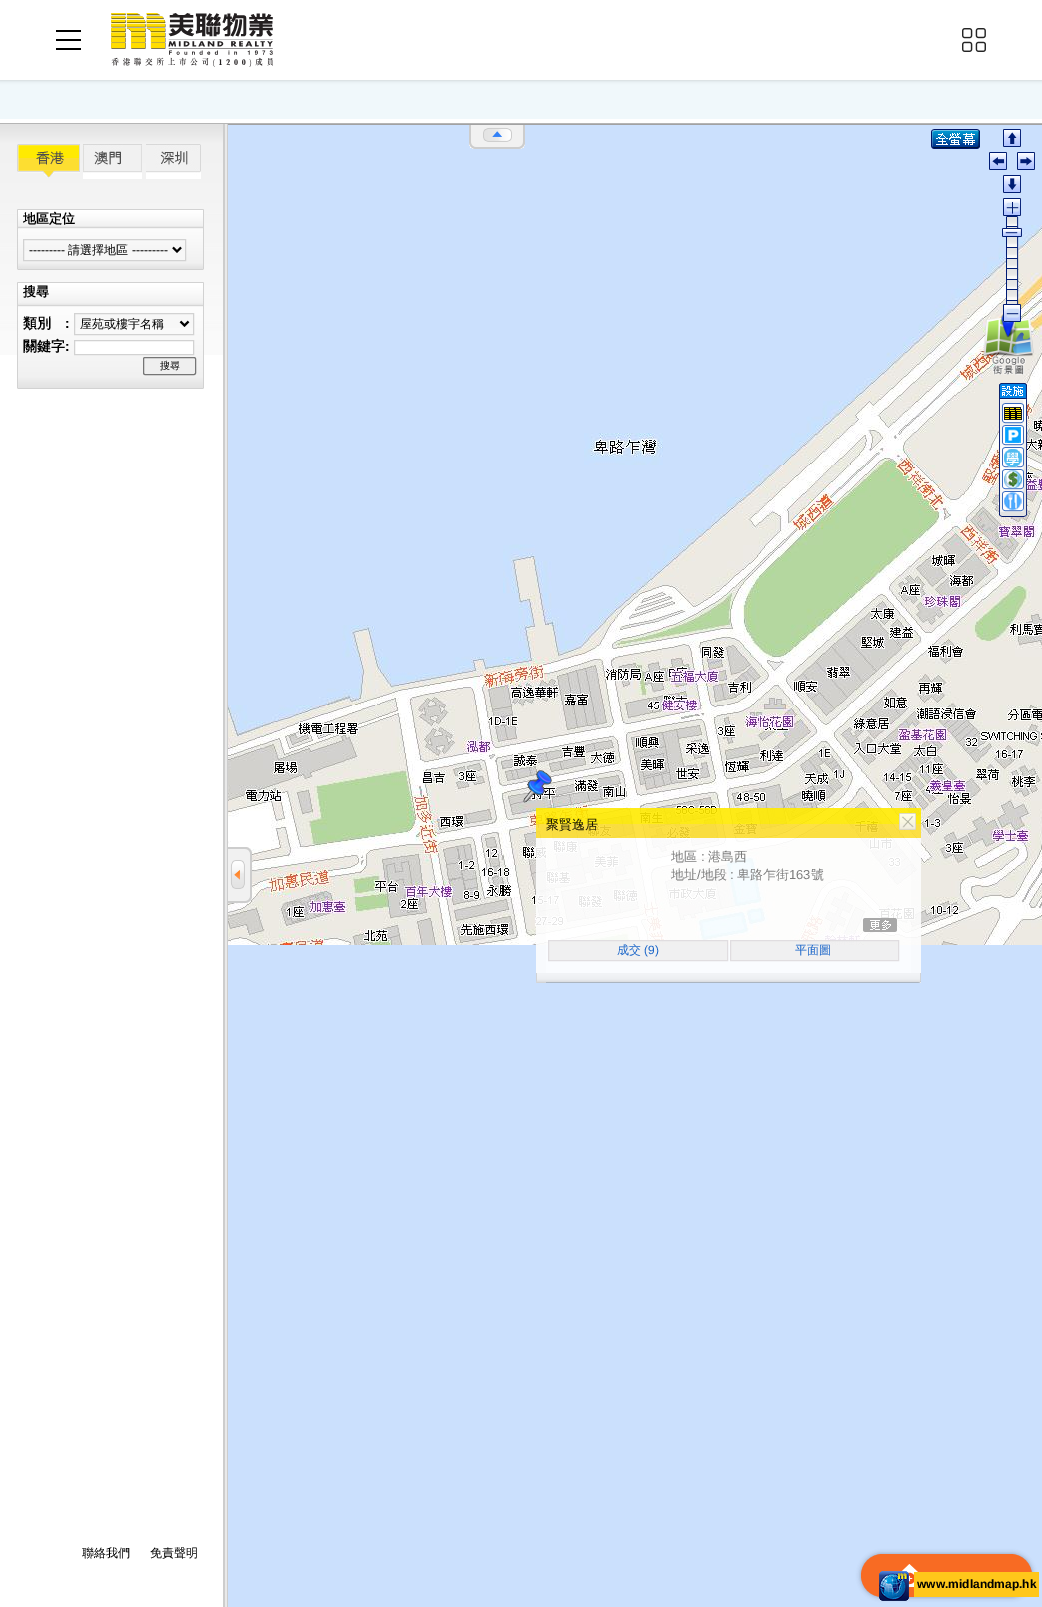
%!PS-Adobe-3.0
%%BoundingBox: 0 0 1042 1607
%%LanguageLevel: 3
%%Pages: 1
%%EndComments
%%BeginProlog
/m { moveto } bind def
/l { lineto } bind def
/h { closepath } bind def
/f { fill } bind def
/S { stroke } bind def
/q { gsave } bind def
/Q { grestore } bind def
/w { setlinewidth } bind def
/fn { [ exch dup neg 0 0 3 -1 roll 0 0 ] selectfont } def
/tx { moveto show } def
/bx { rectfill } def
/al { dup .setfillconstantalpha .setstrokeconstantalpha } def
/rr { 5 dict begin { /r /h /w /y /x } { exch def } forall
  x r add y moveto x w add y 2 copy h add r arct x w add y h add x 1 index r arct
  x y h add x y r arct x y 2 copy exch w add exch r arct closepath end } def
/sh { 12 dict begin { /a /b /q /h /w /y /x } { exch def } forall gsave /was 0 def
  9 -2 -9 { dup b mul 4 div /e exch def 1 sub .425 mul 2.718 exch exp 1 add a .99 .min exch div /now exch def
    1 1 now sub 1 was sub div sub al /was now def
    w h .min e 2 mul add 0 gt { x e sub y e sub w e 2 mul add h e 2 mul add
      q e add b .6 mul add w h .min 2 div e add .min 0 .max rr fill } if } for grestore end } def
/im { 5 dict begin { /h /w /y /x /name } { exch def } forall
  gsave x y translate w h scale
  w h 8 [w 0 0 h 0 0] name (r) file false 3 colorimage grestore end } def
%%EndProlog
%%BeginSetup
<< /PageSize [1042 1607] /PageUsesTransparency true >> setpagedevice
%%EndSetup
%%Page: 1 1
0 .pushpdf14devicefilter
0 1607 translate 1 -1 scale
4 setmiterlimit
0.796 0.878 0.992 setrgbcolor
0 0 1042 1607 bx
0.941 0.973 0.984 setrgbcolor
0 80 1042 39 bx
0 setgray
0 0 1042 80 0 2 0.2 sh
1 setgray
0 0 1042 80 bx
0 setgray
56 39 25 2 bx
56 30 25 2 bx
56 48 25 2 bx
(image0.raw) 111 13 162 54 im
(image1.raw) 962 28 24 24 im
861 1554 171 43 21.5 2.5 0.3 sh
0.973 0.42 0.137 setrgbcolor
861 1554 171 43 21.5 rr f
(image2.raw) 901 1564 17 23 im
(image3.raw) 0 119 1042 6 im
(image4.raw) 469 125 56 24 im
(image5.raw) 931 129 49 20 im
1 setgray
0 355 223 1252 bx
(image6.raw) 0 124 223 231 im
(image7.raw) 17 144 63 34 im
(image8.raw) 83 144 59 35 im
(image9.raw) 146 144 55 35 im
(image10.raw) 17 209 187 61 im
/WenQuanYiZenHei-Bold 13 fn
0 setgray
(地區定位) 23 223 tx
0.969 setgray
24 251 161 9 bx
0.824 setgray
23.5 239.5 162 21 rectstroke
0 setgray
2 w
173 247.5 m 177 251.5 l 181 247.5 l S
/LiberationSans-Regular 12 fn
(---------) 29 254 tx
/WenQuanYiZenHei-Medium 12 fn
(請選擇地區) 68 254 tx
/LiberationSans-Regular 12 fn
(---------) 132 254 tx
(image11.raw) 17 282 187 107 im
/WenQuanYiZenHei-Bold 13 fn
(搜尋) 23 296 tx
/WenQuanYiZenHei-Bold 14 fn
(類別) 23 328 tx
/LiberationSans-Bold 14 fn
(:) 65 328 tx
0.969 setgray
75 314 118 14 bx
0.824 setgray
1 w
74.5 313.5 119 21 rectstroke
0 setgray
2 w
180.5 321.5 m 184.5 325.5 l 188.5 321.5 l S
/WenQuanYiZenHei-Medium 12 fn
(屋苑或樓宇名稱) 80 328 tx
/WenQuanYiZenHei-Bold 14 fn
(關鍵字) 23 351 tx
/LiberationSans-Bold 14 fn
(:) 65 351 tx
1 setgray
74.5 340.5 m 193.5 340.5 l 193.5 354.5 l 74.5 354.5 l h q f Q
0.824 setgray
1 w
S
0.937 setgray
143.5 357.5 52 17 1.5 rr q f Q
0.463 setgray
S
/WenQuanYiZenHei-Medium 10 fn
0 setgray
(搜尋) 160 369 tx
/WenQuanYiZenHei-Medium 12 fn
(聯絡我們) 82 1557 tx
(免責聲明) 150 1557 tx
0.804 setgray
223 124 5 1483 bx
0.914 setgray
225 124 2 1483 bx
(image30.raw) 228 705 35 240 im
(image12.raw) 228 847 24 56 im
(image13.raw) 1003 129 18 18 im
(image14.raw) 989 152 18 18 im
(image15.raw) 1017 152 18 18 im
(image16.raw) 1003 175 18 18 im
(image17.raw) 1003 198 18 18 im
(image25.raw) 983 225 59 240 im
(image18.raw) 1006 216 13 88 im
(image19.raw) 1002 228 20 9 im
(image21.raw) 983 314 51 61 im
(image20.raw) 1003 304 18 18 im
(image29.raw) 983 465 59 240 im
(image22.raw) 999 383 28 134 im
(image23.raw) 584 433 79 32 im
(image24.raw) 782 280 201 185 im
(image26.raw) 319 625 184 80 im
(image27.raw) 503 497 240 208 im
(image28.raw) 743 465 240 240 im
(image31.raw) 263 705 240 240 im
(image32.raw) 503 705 240 240 im
(image33.raw) 743 705 240 240 im
(image34.raw) 983 705 59 240 im
(image35.raw) 523 770 29 33 im
(image36.raw) 536 808 10 30 im
(image37.raw) 546 808 365 30 im
(image38.raw) 911 808 10 30 im
0.9 al
0.992 setgray
536 838 10 135 bx
1 setgray
546 838 365 135 bx
/WenQuanYiZenHei-Medium 13 fn
1 al
0.098 0.09 0.016 setrgbcolor
(聚賢逸居) 546 829 tx
0.482 setgray
(地區) 671 861 tx
/LiberationSans-Regular 13 fn
(:) 701 861 tx
/WenQuanYiZenHei-Medium 13 fn
(港島西) 708 861 tx
(地址) 671 879 tx
/LiberationSans-Regular 13 fn
(/) 697 879 tx
/WenQuanYiZenHei-Medium 13 fn
(地段) 701 879 tx
/LiberationSans-Regular 13 fn
(:) 730 879 tx
/WenQuanYiZenHei-Medium 13 fn
(卑路乍街) 737 879 tx
/LiberationSans-Regular 13 fn
(163) 789 879 tx
/WenQuanYiZenHei-Medium 13 fn
(號) 811 879 tx
(image39.raw) 863 918 34 14 im
0.9 al
0.937 setgray
548.5 940.5 m 727.5 940.5 l 727.5 960.5 l 548.5 960.5 l h f
1 al
0.878 0.867 0.878 setrgbcolor
548.5 940.5 m 727.5 940.5 l 727.5 960.5 l 548.5 960.5 l h S
/WenQuanYiZenHei-Medium 12 fn
0.094 0.392 0.784 setrgbcolor
(成交) 617 954 tx
/LiberationSans-Regular 12 fn
(\(9\)) 644 954 tx
0.9 al
0.937 setgray
730.5 940.5 m 898.5 940.5 l 898.5 960.5 l 730.5 960.5 l h f
1 al
0.878 0.867 0.878 setrgbcolor
730.5 940.5 m 898.5 940.5 l 898.5 960.5 l 730.5 960.5 l h S
/WenQuanYiZenHei-Medium 12 fn
0.094 0.392 0.784 setrgbcolor
(平面圖) 795 954 tx
0.9 al
0.992 setgray
911 838 10 135 bx
1 al
(image40.raw) 536 973 10 10 im
(image41.raw) 546 973 365 10 im
(image42.raw) 911 973 10 10 im
(image43.raw) 899 813 17 17 im
(image44.raw) 879 1571 30 30 im
1 0.78 0.102 setrgbcolor
914 1572 125 25 bx
/LiberationSans-Bold 12 fn
0 setgray
(www.midlandmap.hk) 917 1588 tx
.poppdf14devicefilter showpage
%%EOF
